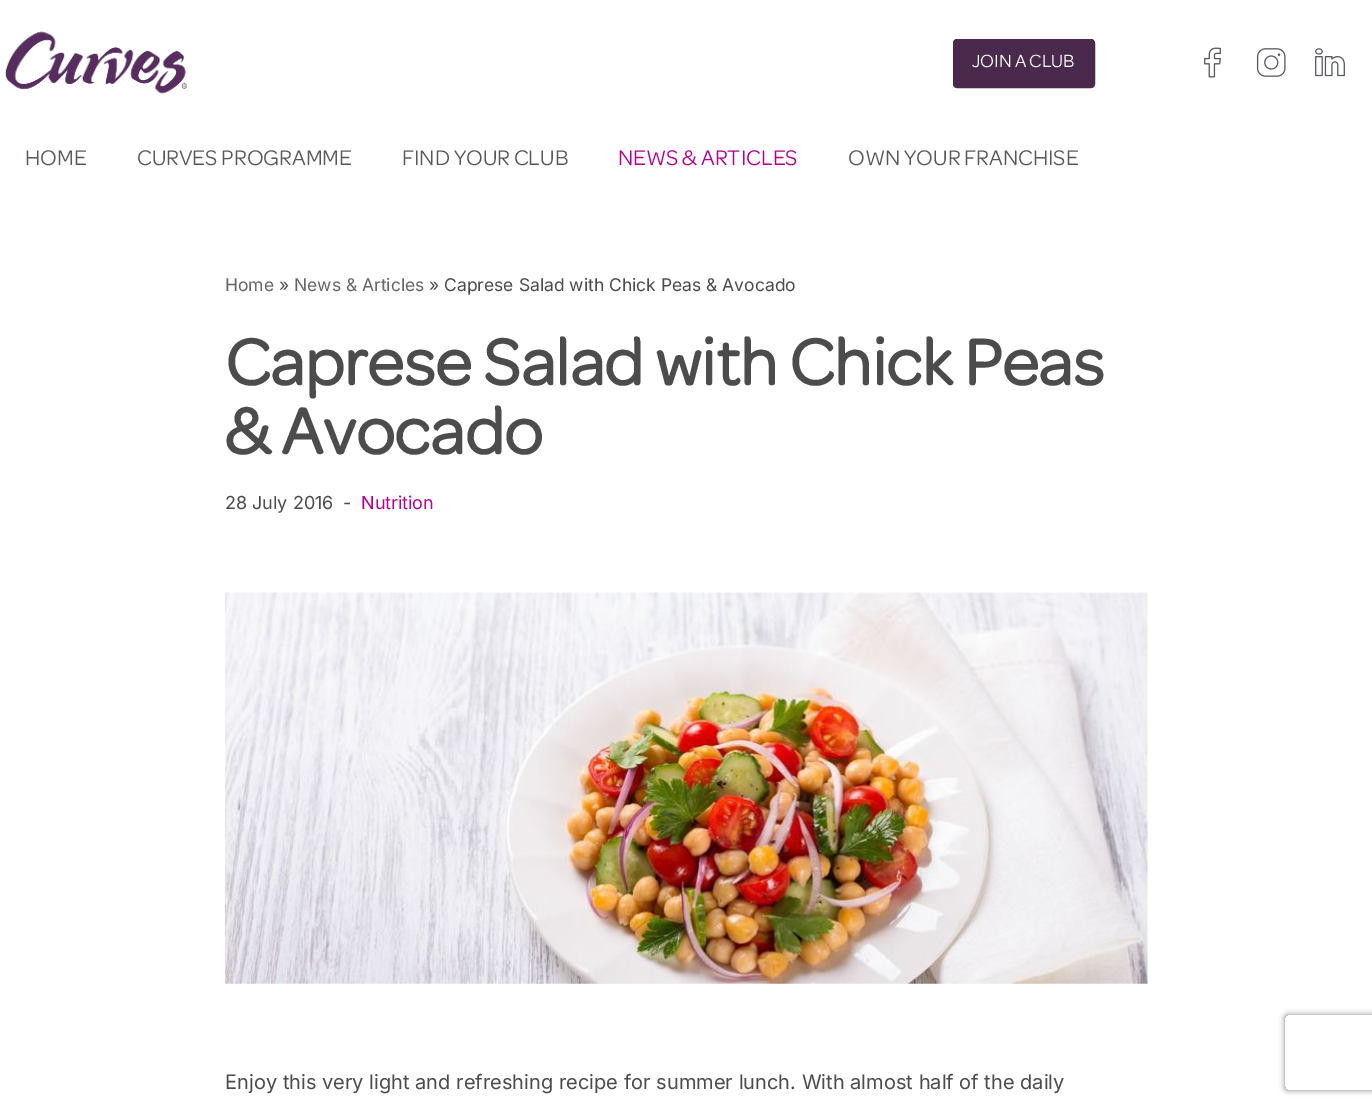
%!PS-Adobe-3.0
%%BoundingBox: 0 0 1372 1107
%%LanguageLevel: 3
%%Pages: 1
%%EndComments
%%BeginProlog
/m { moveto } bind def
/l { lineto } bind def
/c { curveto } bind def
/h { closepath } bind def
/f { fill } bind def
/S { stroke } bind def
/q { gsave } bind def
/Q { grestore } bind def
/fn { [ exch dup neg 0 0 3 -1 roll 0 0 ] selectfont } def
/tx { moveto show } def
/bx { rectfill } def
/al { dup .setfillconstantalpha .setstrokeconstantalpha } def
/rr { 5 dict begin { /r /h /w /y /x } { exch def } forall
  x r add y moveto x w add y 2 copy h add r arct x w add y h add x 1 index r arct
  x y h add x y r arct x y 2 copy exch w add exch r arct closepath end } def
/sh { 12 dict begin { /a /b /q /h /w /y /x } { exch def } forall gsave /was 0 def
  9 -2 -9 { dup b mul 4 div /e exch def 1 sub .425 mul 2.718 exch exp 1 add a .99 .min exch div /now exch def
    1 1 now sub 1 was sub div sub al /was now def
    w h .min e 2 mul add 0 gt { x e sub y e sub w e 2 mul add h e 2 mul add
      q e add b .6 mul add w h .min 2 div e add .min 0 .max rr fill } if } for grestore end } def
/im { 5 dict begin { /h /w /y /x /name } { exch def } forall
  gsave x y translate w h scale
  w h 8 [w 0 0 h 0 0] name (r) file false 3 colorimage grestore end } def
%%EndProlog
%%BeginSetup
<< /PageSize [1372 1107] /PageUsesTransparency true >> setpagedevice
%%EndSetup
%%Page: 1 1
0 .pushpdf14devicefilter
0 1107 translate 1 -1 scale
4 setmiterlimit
1 setgray
0 0 1372 1107 bx
(image0.raw) 5 31 182 63 im
0.286 0.165 0.298 setrgbcolor
953.5 39.5 141 48 3.5 rr q f Q
S
/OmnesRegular-Regular 18.75 fn
1 setgray
(JOIN A CLUB) 972 67 tx
(image1.raw) 1204 47 17 31 im
(image2.raw) 1256 48 30 29 im
(image3.raw) 1315 48 30 29 im
/OmnesRegular-Regular 22.5 fn
0.329 0.349 0.373 setrgbcolor
(HOME) 25 165 tx
(CURVES PROGRAMME) 137 165 tx
(FIND YOUR CLUB) 402 165 tx
0.69 0 0.557 setrgbcolor
(NEWS & ARTICLES) 618 165 tx
0.329 0.349 0.373 setrgbcolor
(OWN YOUR FRANCHISE) 848 165 tx
/Inter-Regular 17.5 fn
0.404 setgray
(Home) 225 291 tx
0.298 setgray
(») 279 291 tx
0.404 setgray
(News & Articles) 294 291 tx
0.298 setgray
(» Caprese Salad with Chick Peas & Avocado) 429 291 tx
/OmnesRegular-Bold 68.75 fn
(Caprese Salad with Chick Peas) 225 385 tx
(& Avocado) 225 454 tx
/Inter-Regular 18 fn
(28 July 2016) 225 509 tx
(-) 343 509 tx
0.69 0 0.557 setrgbcolor
(Nutrition) 361 509 tx
(image4.raw) 225 592 923 392 im
/Inter-Regular 20 fn
0.298 setgray
(Enjoy this very light and refreshing recipe for summer lunch. With almost half of the daily) 225 1089 tx
q
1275 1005 m 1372 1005 l 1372 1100 l 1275 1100 l h 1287.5 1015 m 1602.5 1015 l 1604 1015 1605 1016 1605 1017.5 c 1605 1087.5 l 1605 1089 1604 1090 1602.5 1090 c 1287.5 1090 l 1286 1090 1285 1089 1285 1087.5 c 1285 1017.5 l 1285 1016 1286 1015 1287.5 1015 c h eoclip newpath
0.502 setgray
1285 1015 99 75 2.5 3 1 sh
Q
.poppdf14devicefilter showpage
%%EOF
